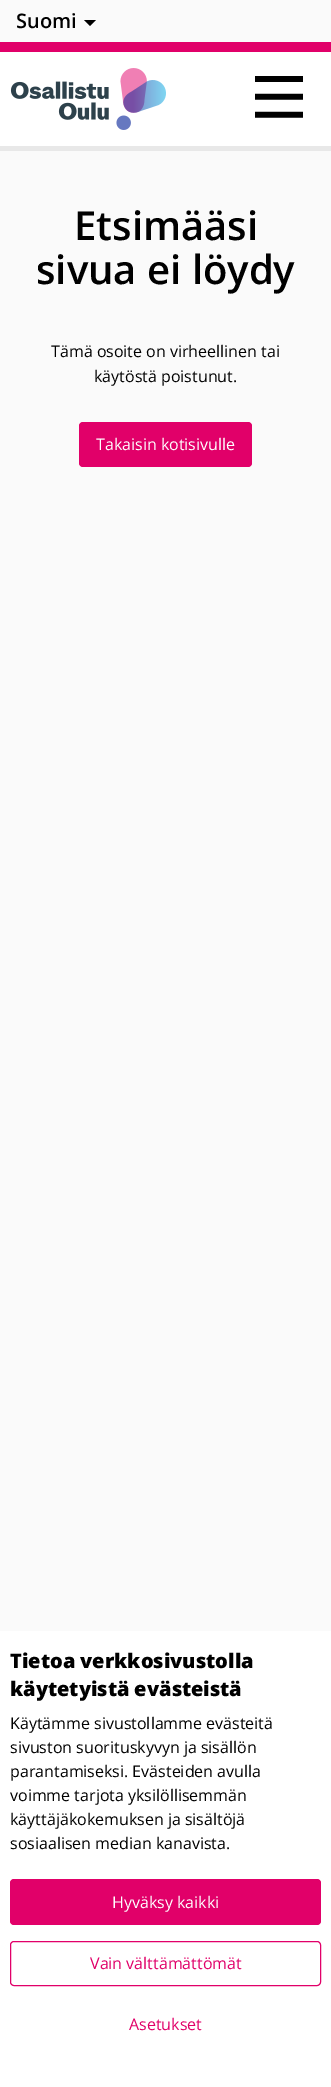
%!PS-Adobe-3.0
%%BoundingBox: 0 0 331 2087
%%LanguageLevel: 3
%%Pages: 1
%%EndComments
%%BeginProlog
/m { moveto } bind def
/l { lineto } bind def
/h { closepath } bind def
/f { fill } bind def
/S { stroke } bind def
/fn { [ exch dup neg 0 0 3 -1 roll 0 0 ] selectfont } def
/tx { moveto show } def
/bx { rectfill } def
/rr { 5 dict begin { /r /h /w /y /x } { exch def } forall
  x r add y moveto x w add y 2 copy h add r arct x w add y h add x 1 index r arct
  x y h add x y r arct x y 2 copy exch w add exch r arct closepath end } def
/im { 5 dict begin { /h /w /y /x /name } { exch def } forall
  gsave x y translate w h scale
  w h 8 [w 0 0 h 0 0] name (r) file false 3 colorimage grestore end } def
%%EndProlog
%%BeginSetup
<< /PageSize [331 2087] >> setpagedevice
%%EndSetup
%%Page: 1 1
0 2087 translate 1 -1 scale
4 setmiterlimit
0.98 setgray
0 0 331 2087 bx
/OpenSans-SemiBold 20 fn
0 setgray
(Suomi) 16 28 tx
84 20 m 96 20 l 90 26 l h f
1 setgray
0 52 331 94 bx
0.882 0 0.412 setrgbcolor
0 42 331 10 bx
0.91 setgray
0 146 331 5 bx
(image0.raw) 10 68 156 62 im
(image1.raw) 255 76 48 42 im
/OpenSans-SemiBold 40 fn
0 setgray
(Etsimääsi) 74 240 tx
(sivua ei löydy) 36 284 tx
/OpenSans-Regular 16 fn
(Tämä osoite on virheellinen tai) 51 357 tx
(käytöstä poistunut.) 94 382 tx
0.882 0 0.412 setrgbcolor
79 422 173 45 4 rr f
1 setgray
(Takaisin kotisivulle) 96 450 tx
0 1631 331 456 bx
/OpenSans-ExtraBold 20 fn
0 setgray
(Tietoa verkkosivustolla) 10 1668 tx
(käytetyistä evästeistä) 10 1696 tx
/OpenSans-Regular 16 fn
(Käytämme sivustollamme evästeitä) 10 1729 tx
(sivuston suorituskyvyn ja sisällön) 10 1753 tx
(parantamiseksi. Evästeiden avulla) 10 1777 tx
(voimme tarjota yksilöllisemmän) 10 1801 tx
(käyttäjäkokemuksen ja sisältöjä) 10 1825 tx
(sosiaalisen median kanavista.) 10 1849 tx
0.882 0 0.412 setrgbcolor
10 1879 311 46 4 rr f
1 setgray
(Hyväksy kaikki) 112 1908 tx
0.882 0 0.412 setrgbcolor
10.5 1941.5 310 44 3.5 rr S
(Vain välttämättömät) 90 1969 tx
(Asetukset) 129 2030 tx
showpage
%%EOF
